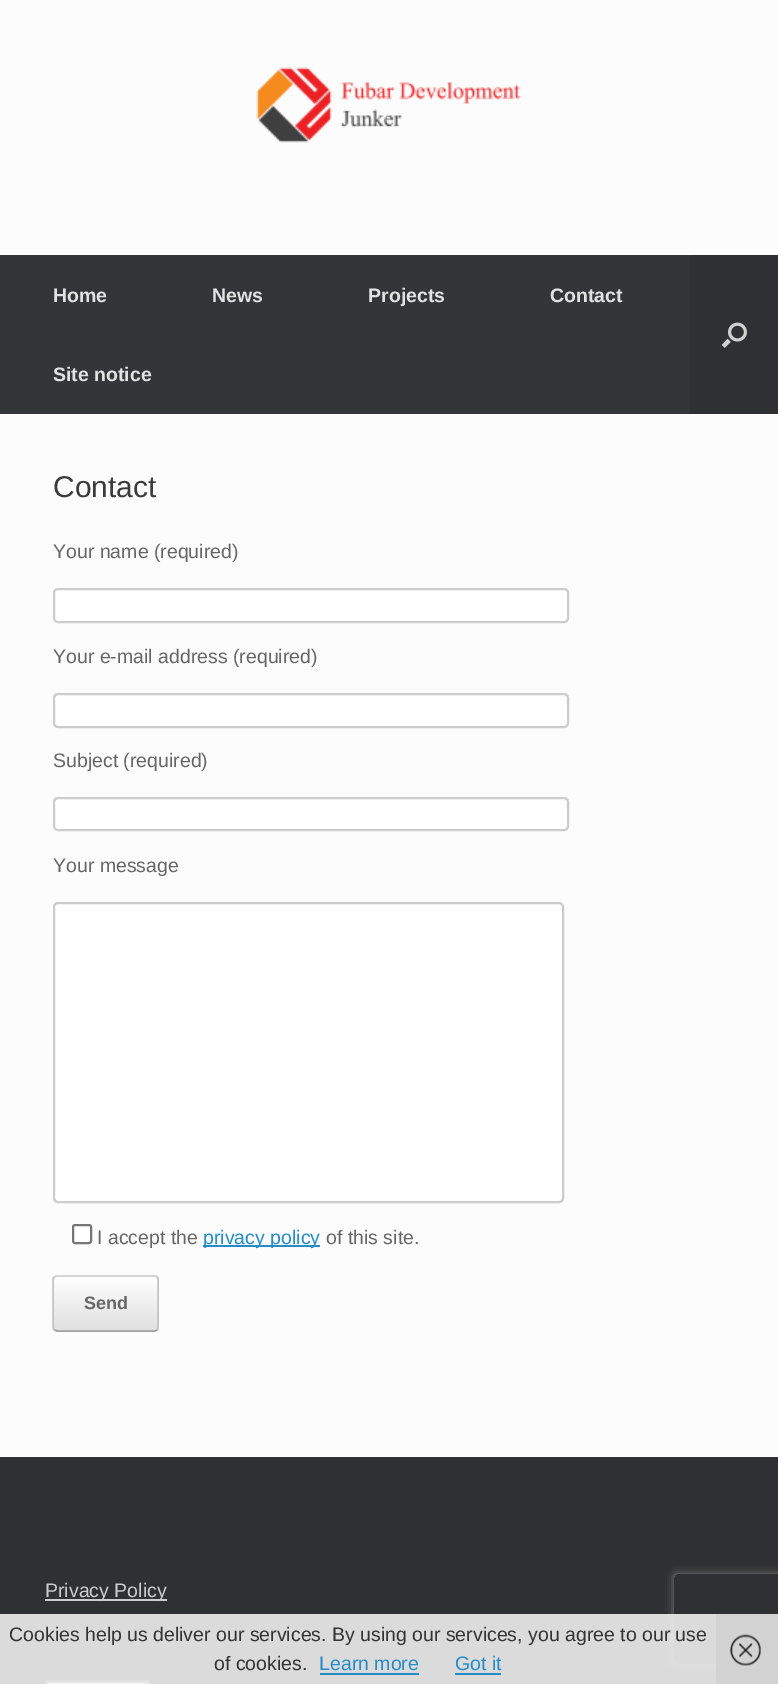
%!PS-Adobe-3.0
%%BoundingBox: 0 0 778 1684
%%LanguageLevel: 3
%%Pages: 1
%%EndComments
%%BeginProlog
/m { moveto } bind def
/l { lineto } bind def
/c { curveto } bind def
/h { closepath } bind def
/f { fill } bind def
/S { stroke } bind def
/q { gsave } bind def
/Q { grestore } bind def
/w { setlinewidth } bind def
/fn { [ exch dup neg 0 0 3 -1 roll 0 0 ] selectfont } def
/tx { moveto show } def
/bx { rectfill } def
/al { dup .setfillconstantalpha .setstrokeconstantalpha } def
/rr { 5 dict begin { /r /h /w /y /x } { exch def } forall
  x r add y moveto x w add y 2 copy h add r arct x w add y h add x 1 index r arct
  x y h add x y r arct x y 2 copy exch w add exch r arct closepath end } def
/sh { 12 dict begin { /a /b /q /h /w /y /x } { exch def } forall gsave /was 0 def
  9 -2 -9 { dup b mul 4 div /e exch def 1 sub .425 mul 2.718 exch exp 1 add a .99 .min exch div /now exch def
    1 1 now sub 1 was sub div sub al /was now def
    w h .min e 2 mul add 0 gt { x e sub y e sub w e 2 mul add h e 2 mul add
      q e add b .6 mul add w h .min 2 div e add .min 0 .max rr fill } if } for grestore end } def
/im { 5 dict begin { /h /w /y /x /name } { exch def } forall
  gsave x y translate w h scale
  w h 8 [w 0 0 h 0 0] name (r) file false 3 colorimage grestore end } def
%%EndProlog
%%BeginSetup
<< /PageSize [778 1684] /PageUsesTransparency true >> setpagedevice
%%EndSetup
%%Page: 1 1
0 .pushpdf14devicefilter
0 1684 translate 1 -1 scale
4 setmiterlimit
0.184 0.188 0.2 setrgbcolor
0 0 778 1684 bx
0.988 setgray
0 0 778 255 bx
(image0.raw) 256 67 265 76 im
0.204 0.208 0.22 setrgbcolor
0 255 690 159 bx
/LiberationSans-Bold 19.5 fn
0.886 setgray
(Home) 53 302 tx
(News) 212 302 tx
(Projects) 368 302 tx
(Contact) 550 302 tx
(Site notice) 53 381 tx
(image1.raw) 721 322 26 26 im
0.988 setgray
0 414 778 1043 bx
/LiberationSans-Regular 30 fn
0.231 setgray
(Contact) 53 497 tx
/LiberationSans-Regular 19.5 fn
0.4 setgray
(Your name \(required\)) 53 558 tx
1 setgray
54 589 514 33 4 rr q f Q
0.8 setgray
2 w
S
0.4 setgray
(Your e-mail address \(required\)) 53 663 tx
1 setgray
54 694 514 33 4 rr q f Q
0.8 setgray
S
0.4 setgray
(Subject \(required\)) 53 767 tx
1 setgray
54 798 514 32 4 rr q f Q
0.8 setgray
S
0.4 setgray
(Your message) 53 872 tx
1 setgray
54 903 509 299 4 rr q f Q
0.8 setgray
S
1 setgray
73 1225 18 18 2 rr q f Q
0.463 setgray
S
0.4 setgray
(I accept the) 97 1244 tx
0.141 0.549 0.784 setrgbcolor
203 1245 117 2 bx
(privacy policy) 203 1244 tx
0.4 setgray
(of this site.) 326 1244 tx
q
53 1275 106 57 5 rr clip newpath
q 53 1275 m 159 1275 l 159 1277 l 53 1277 l h clip newpath
<< /ShadingType 2 /ColorSpace /DeviceRGB /Coords [54 1277 54 1223] /Extend [true true] /Function << /FunctionType 2 /Domain [0 1] /C0 [0.875 0.875 0.875] /C1 [1 1 1] /N 1 >> >> shfill Q
q 53 1277 m 159 1277 l 159 1331 l 53 1331 l h clip newpath
<< /ShadingType 2 /ColorSpace /DeviceRGB /Coords [54 1331 54 1277] /Extend [true true] /Function << /FunctionType 2 /Domain [0 1] /C0 [0.875 0.875 0.875] /C1 [1 1 1] /N 1 >> >> shfill Q
q 53 1331 m 159 1331 l 159 1332 l 53 1332 l h clip newpath
<< /ShadingType 2 /ColorSpace /DeviceRGB /Coords [54 1385 54 1331] /Extend [true true] /Function << /FunctionType 2 /Domain [0 1] /C0 [0.875 0.875 0.875] /C1 [1 1 1] /N 1 >> >> shfill Q
Q
0.824 setgray
1.5 w
54.5 1277 m 57 1276 l 155 1276 l 157 1277 l S
0.765 setgray
157 1277 m 158 1277.5 158 1278.5 158 1279.5 c 158 1327.5 l 158 1328.5 158 1329.5 157 1330 c S
0.624 setgray
157 1330 m 155 1331 l 73 1331 l 57 1331 l 54.5 1330 l S
0.765 setgray
54.5 1330 m 53.5 1329.5 53 1328.5 53 1327.5 c 53 1279.5 l 53 1278.5 53.5 1277.5 54.5 1277 c S
/LiberationSans-Bold 18 fn
0.4 setgray
(Send) 84 1309 tx
0.8 setgray
45 1599 122 2 bx
/LiberationSans-Regular 19.5 fn
(Privacy Policy) 45 1597 tx
1 setgray
46 1681 103 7 2 rr q f Q
0.463 setgray
2 w
S
q
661 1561 m 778 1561 l 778 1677 l 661 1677 l h 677 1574 m 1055 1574 l 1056.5 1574 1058 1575.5 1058 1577 c 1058 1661 l 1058 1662.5 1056.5 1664 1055 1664 c 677 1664 l 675.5 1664 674 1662.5 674 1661 c 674 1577 l 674 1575.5 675.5 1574 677 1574 c h eoclip newpath
0.502 setgray
674 1574 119 90 3 4 1 sh
Q
0.9 al
0.933 setgray
0 1614 778 70 bx
1 al
0.2 setgray
(Cookies help us deliver our services. By using our services, you agree to our use) 9 1641 tx
(of cookies.) 214 1670 tx
0.141 0.549 0.784 setrgbcolor
(Learn more) 319 1670 tx
320 1673 99 2 bx
(Got it) 455 1670 tx
455 1673 46 2 bx
0.6 al
0.8 setgray
716 1614 62 70 bx
1 al
(image2.raw) 730 1634 31 32 im
.poppdf14devicefilter showpage
%%EOF
